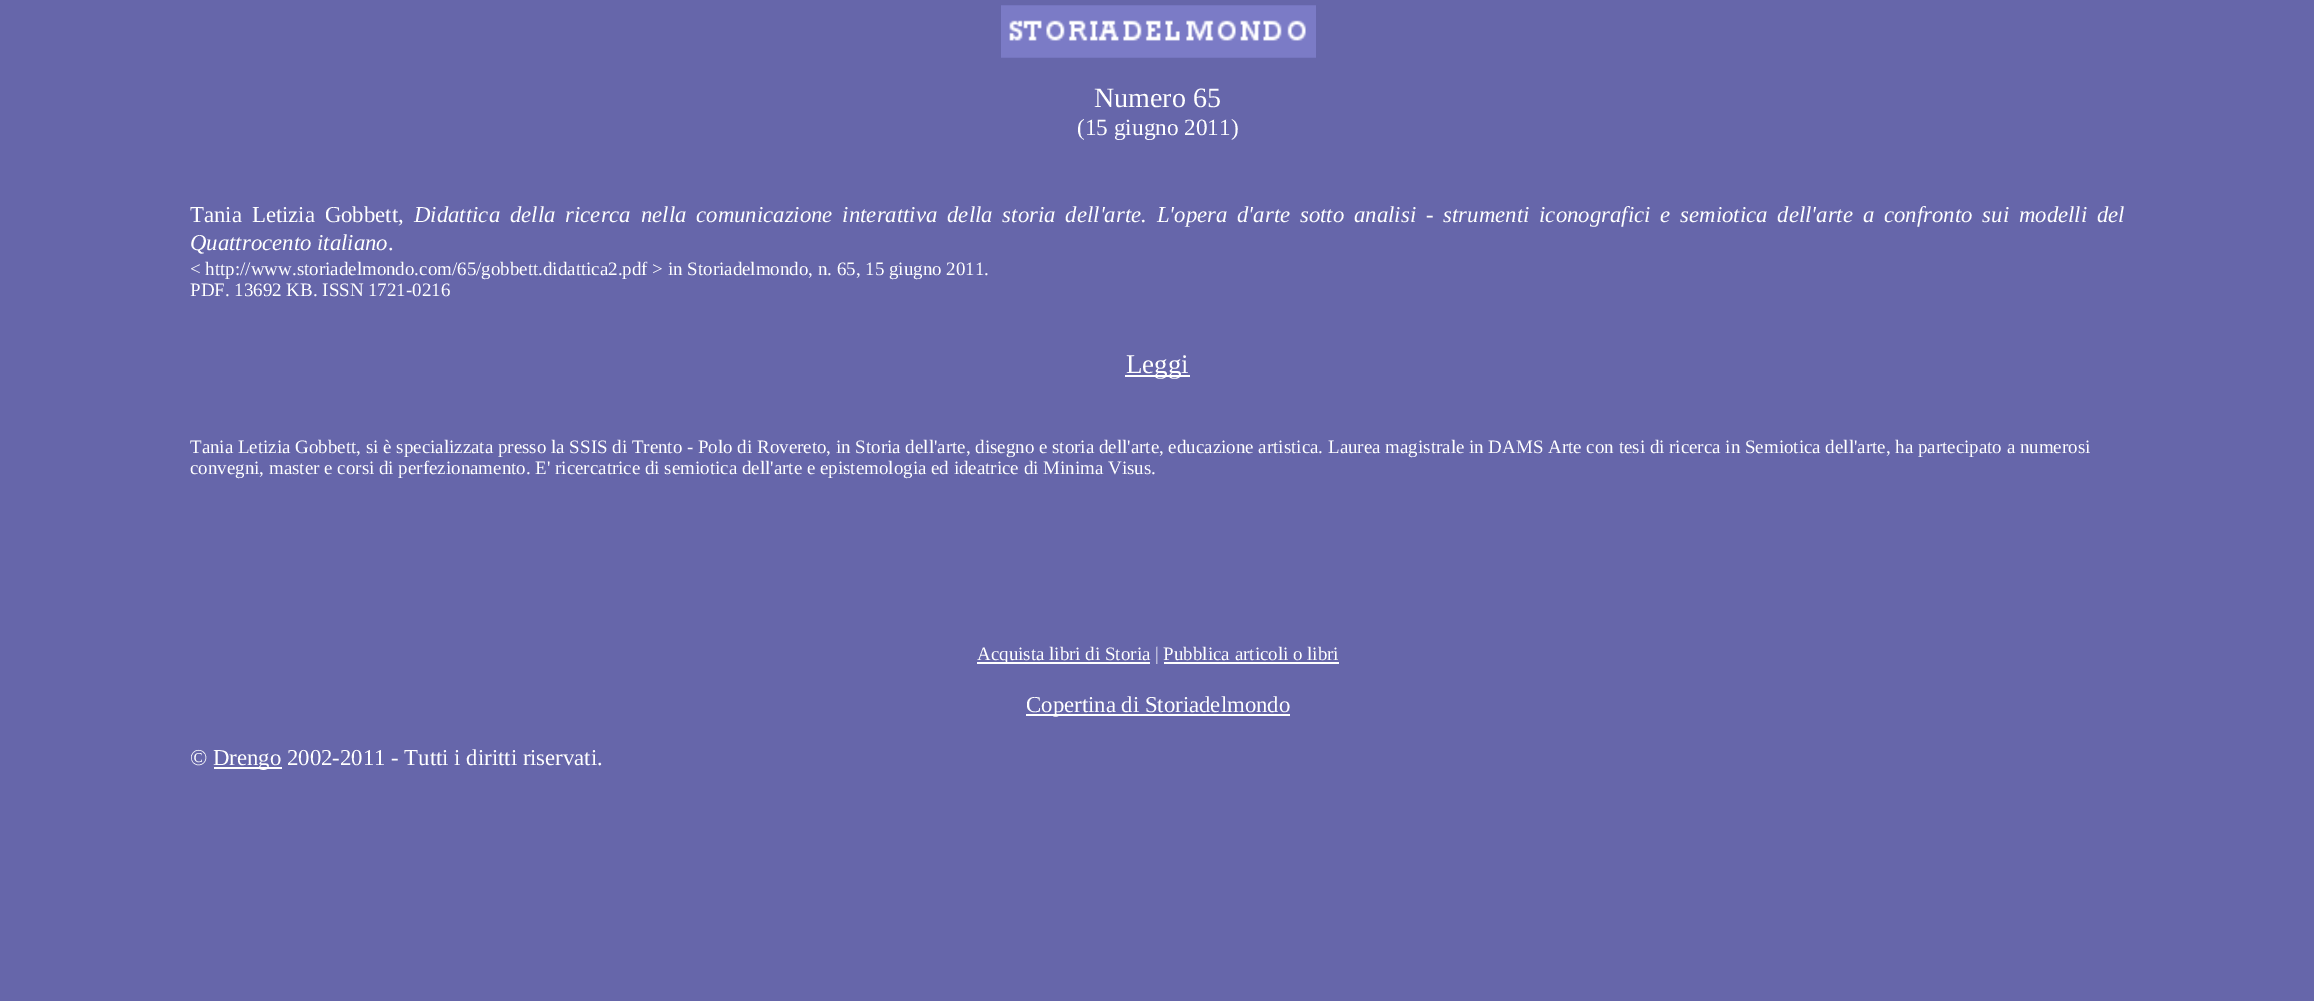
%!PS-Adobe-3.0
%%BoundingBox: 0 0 2314 1001
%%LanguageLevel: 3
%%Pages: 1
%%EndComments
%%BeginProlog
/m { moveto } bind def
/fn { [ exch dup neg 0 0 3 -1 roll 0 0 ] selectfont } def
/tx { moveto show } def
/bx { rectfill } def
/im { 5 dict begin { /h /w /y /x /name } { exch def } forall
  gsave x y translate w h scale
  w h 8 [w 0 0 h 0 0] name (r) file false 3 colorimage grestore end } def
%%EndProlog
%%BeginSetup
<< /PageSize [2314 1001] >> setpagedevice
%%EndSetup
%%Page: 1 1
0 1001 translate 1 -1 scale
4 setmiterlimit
0.4 0.4 0.667 setrgbcolor
0 0 2314 1001 bx
(image0.raw) 1001 5 315 53 im
/LiberationSerif-Regular 28 fn
1 setgray
(Numero 65) 1094 107 tx
/LiberationSerif-Regular 23.25 fn
(\(15 giugno 2011\)) 1077 135 tx
/LiberationSerif-Regular 22.75 fn
190 222 m 4.2 0 32 (Tania Letizia Gobbett,) widthshow
/LiberationSerif-Italic 22.75 fn
414 222 m 4.2 0 32 (Didattica della ricerca nella comunicazione interattiva della storia dell'arte. L'opera d'arte sotto analisi - strumenti iconografici e semiotica dell'arte a confronto sui modelli del) widthshow
(Quattrocento italiano) 190 250 tx
/LiberationSerif-Regular 22.75 fn
(.) 388 250 tx
/LiberationSerif-Regular 18.96 fn
(< http://www.storiadelmondo.com/65/gobbett.didattica2.pdf > in Storiadelmondo, n. 65, 15 giugno 2011.) 190 275 tx
(PDF. 13692 KB. ISSN 1721-0216) 190 296 tx
1125 375 65 2 bx
/LiberationSerif-Regular 27 fn
(Leggi) 1126 373 tx
/LiberationSerif-Regular 18.96 fn
(Tania Letizia Gobbett, si è specializzata presso la SSIS di Trento - Polo di Rovereto, in Storia dell'arte, disegno e storia dell'arte, educazione artistica. Laurea magistrale in DAMS Arte con tesi di ricerca in Semiotica dell'arte, ha partecipato a numerosi) 190 453 tx
(convegni, master e corsi di perfezionamento. E' ricercatrice di semiotica dell'arte e epistemologia ed ideatrice di Minima Visus.) 190 474 tx
977 662 173 2 bx
(Acquista libri di Storia | Pubblica articoli o libri) 977 660 tx
1164 662 175 2 bx
1026 714 264 2 bx
/LiberationSerif-Regular 22.75 fn
(Copertina di Storiadelmondo) 1026 712 tx
(©) 190 765 tx
214 767 68 2 bx
(Drengo 2002-2011 - Tutti i diritti riservati.) 213 765 tx
showpage
%%EOF
